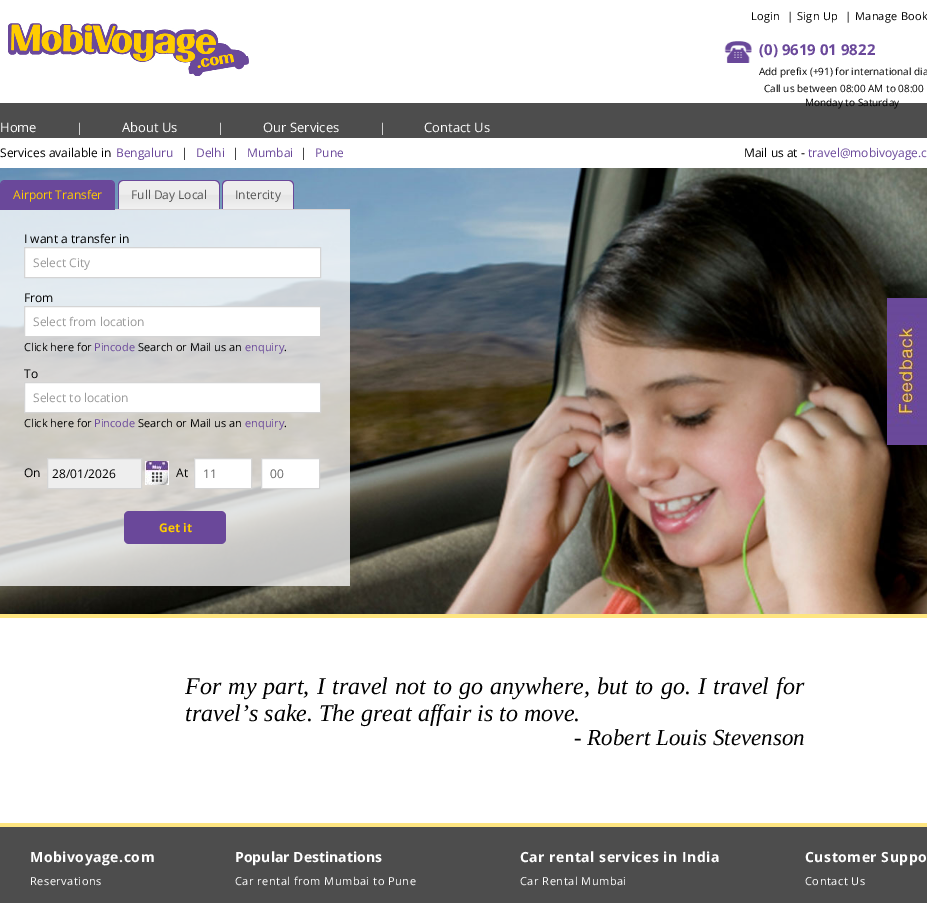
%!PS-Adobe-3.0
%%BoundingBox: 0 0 927 903
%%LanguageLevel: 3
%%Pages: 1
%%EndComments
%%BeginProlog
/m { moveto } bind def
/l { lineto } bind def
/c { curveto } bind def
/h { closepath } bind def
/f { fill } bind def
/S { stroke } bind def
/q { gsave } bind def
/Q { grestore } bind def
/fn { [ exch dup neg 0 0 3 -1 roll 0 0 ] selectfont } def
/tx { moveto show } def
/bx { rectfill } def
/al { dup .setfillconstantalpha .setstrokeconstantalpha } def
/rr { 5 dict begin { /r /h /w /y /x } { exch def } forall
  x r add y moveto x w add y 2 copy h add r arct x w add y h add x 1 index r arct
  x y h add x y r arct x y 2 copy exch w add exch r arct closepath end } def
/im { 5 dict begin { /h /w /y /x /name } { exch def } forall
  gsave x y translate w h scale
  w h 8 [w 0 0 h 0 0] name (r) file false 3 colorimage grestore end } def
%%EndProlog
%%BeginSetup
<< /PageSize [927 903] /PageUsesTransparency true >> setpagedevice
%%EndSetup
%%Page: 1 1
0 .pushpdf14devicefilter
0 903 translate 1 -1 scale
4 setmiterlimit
1 setgray
0 0 927 903 bx
(image0.raw) 8 23 241 53 im
/OpenSans-Regular 11 fn
0 setgray
751 20 m 0.25 0 (Login) ashow
787 20 m 0.25 0 (|) ashow
797 20 m 0.25 0 (Sign Up) ashow
845 20 m 0.25 0 (|) ashow
855 20 m 0.25 0 (Manage Book) ashow
(image1.raw) 724 41 28 22 im
/OpenSans-Bold 15 fn
0.416 0.282 0.604 setrgbcolor
(\(0\) 9619 01 9822) 759 55 tx
/OpenSans-Regular 10 fn
0 setgray
(Add prefix \(+91\) for international dia) 759 75 tx
(Call us between 08:00 AM to 08:00) 764 92 tx
0.302 setgray
0 103 927 35 bx
0 setgray
(Monday to Saturday) 805 106 tx
/OpenSans-Regular 13 fn
1 setgray
(Home) 0 132 tx
/OpenSans-Regular 12 fn
(|) 76 132 tx
/OpenSans-Regular 13 fn
(About Us) 122 132 tx
/OpenSans-Regular 12 fn
(|) 217 132 tx
/OpenSans-Regular 13 fn
(Our Services) 263 132 tx
/OpenSans-Regular 12 fn
(|) 379 132 tx
/OpenSans-Regular 13 fn
(Contact Us) 424 132 tx
/OpenSans-Regular 12 fn
0 setgray
(Services available in) 0 157 tx
0.416 0.282 0.604 setrgbcolor
(Bengaluru) 116 157 tx
0 setgray
(|) 181 157 tx
0.416 0.282 0.604 setrgbcolor
(Delhi) 196 157 tx
0 setgray
(|) 232 157 tx
0.416 0.282 0.604 setrgbcolor
(Mumbai) 247 157 tx
0 setgray
(|) 300 157 tx
0.416 0.282 0.604 setrgbcolor
(Pune) 315 157 tx
0 setgray
(Mail us at -) 744 157 tx
0.416 0.282 0.604 setrgbcolor
(travel@mobivoyage.c) 808 157 tx
(image2.raw) 0 168 927 446 im
0.996 0.898 0.502 setrgbcolor
0 614 927 4 bx
0.835 0.827 0.831 setrgbcolor
115 209 235 1 bx
0.416 0.282 0.604 setrgbcolor
5 181 m 110 181 l 112 181 114 183 114 185 c 114 210 l 1 210 l 1 185 l 1 183 3 181 5 181 c h f
5 180 m 110 180 l 113 180 115 182 115 185 c 115 210 l 0 210 l 0 185 l 0 182 2 180 5 180 c h 5 181 m 110 181 l 112 181 114 183 114 185 c 114 210 l 1 210 l 1 185 l 1 183 3 181 5 181 c h eofill
1 0.8 0.004 setrgbcolor
(Airport Transfer) 13 199 tx
(image3.raw) 118 180 102 29 im
0.416 0.282 0.604 setrgbcolor
123 180 m 215 180 l 218 180 220 182 220 185 c 220 209 l 118 209 l 118 185 l 118 182 120 180 123 180 c h 123 181 m 215 181 l 217 181 219 183 219 185 c 219 209 l 119 209 l 119 185 l 119 183 121 181 123 181 c h eofill
0.333 setgray
(Full Day Local) 131 199 tx
(image4.raw) 222 180 72 29 im
0.416 0.282 0.604 setrgbcolor
227 180 m 289 180 l 292 180 294 182 294 185 c 294 209 l 222 209 l 222 185 l 222 182 224 180 227 180 c h 227 181 m 289 181 l 291 181 293 183 293 185 c 293 209 l 223 209 l 223 185 l 223 183 225 181 227 181 c h eofill
0.333 setgray
(Intercity) 235 199 tx
0.75 al
1 setgray
0 210 350 376 bx
1 al
0 setgray
(I want a transfer in) 24 243 tx
1 setgray
24.5 247.5 m 320.5 247.5 l 320.5 277.5 l 24.5 277.5 l h q f Q
0.831 setgray
S
0.6 setgray
(Select City) 33 267 tx
0 setgray
(From) 24 302 tx
1 setgray
24.5 306.5 m 320.5 306.5 l 320.5 336.5 l 24.5 336.5 l h q f Q
0.831 setgray
S
0.6 setgray
(Select from location) 33 326 tx
/OpenSans-Regular 11 fn
0 setgray
(Click here for) 24 351 tx
0.416 0.282 0.604 setrgbcolor
(Pincode) 94 351 tx
0 setgray
(Search or Mail us an) 138 351 tx
0.416 0.282 0.604 setrgbcolor
(enquiry) 245 351 tx
0 setgray
(.) 284 351 tx
/OpenSans-Regular 12 fn
(To) 24 378 tx
1 setgray
24.5 382.5 m 320.5 382.5 l 320.5 412.5 l 24.5 412.5 l h q f Q
0.831 setgray
S
0.6 setgray
(Select to location) 33 402 tx
/OpenSans-Regular 11 fn
0 setgray
(Click here for) 24 427 tx
0.416 0.282 0.604 setrgbcolor
(Pincode) 94 427 tx
0 setgray
(Search or Mail us an) 138 427 tx
0.416 0.282 0.604 setrgbcolor
(enquiry) 245 427 tx
0 setgray
(.) 284 427 tx
/OpenSans-Regular 12 fn
(On) 24 477 tx
0.933 setgray
47.5 458.5 m 141.5 458.5 l 141.5 488.5 l 47.5 488.5 l h q f Q
0.831 setgray
S
0 setgray
(28/01/2026) 52 478 tx
(image5.raw) 145 461 24 24 im
(At) 176 477 tx
1 setgray
194.5 458.5 m 251.5 458.5 l 251.5 488.5 l 194.5 488.5 l h q f Q
0.831 setgray
S
0.408 setgray
(11) 203 478 tx
1 setgray
261.5 458.5 m 319.5 458.5 l 319.5 488.5 l 261.5 488.5 l h q f Q
0.831 setgray
S
0.408 setgray
(00) 270 478 tx
0.416 0.282 0.604 setrgbcolor
124 511 102 33 5 rr f
/OpenSans-Bold 12 fn
1 0.8 0.004 setrgbcolor
(Get it) 159 532 tx
/LiberationSerif-Italic 24 fn
0 setgray
185 694 m 1.25 0 32 (For my part, I travel not to go anywhere, but to go. I travel for) widthshow
(travel’s sake. The great affair is to move.) 185 721 tx
/LiberationSerif-Italic 23 fn
(- Robert Louis Stevenson) 574 745 tx
(image6.raw) 887 298 40 147 im
0.302 setgray
0 827 927 76 bx
0.996 0.898 0.502 setrgbcolor
0 823 927 4 bx
/OpenSans-Bold 14 fn
1 setgray
30 862 m 0.5 0 (Mobivoyage.com) ashow
/OpenSans-Regular 11 fn
30 885 m 0.5 0 (Reservations) ashow
/OpenSans-Bold 14 fn
(Popular Destinations) 235 862 tx
/OpenSans-Regular 11 fn
235 885 m 0.5 0 (Car rental from Mumbai to Pune) ashow
/OpenSans-Bold 14 fn
520 862 m 0.5 0 (Car rental services in India) ashow
/OpenSans-Regular 11 fn
520 885 m 0.5 0 (Car Rental Mumbai) ashow
/OpenSans-Bold 14 fn
805 862 m 0.5 0 (Customer Suppo) ashow
/OpenSans-Regular 11 fn
805 885 m 0.5 0 (Contact Us) ashow
.poppdf14devicefilter showpage
%%EOF
